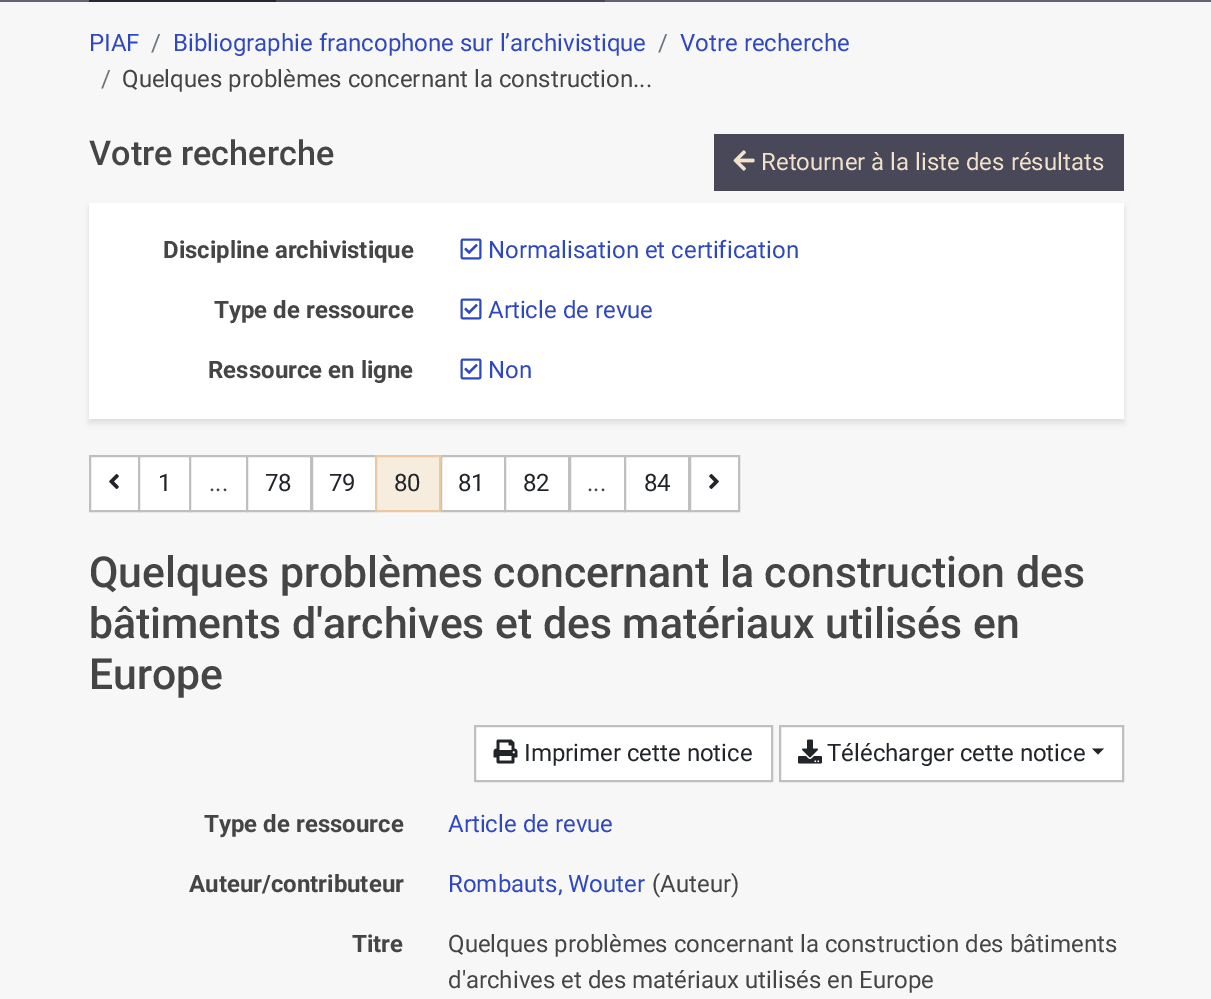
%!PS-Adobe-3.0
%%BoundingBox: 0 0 1211 999
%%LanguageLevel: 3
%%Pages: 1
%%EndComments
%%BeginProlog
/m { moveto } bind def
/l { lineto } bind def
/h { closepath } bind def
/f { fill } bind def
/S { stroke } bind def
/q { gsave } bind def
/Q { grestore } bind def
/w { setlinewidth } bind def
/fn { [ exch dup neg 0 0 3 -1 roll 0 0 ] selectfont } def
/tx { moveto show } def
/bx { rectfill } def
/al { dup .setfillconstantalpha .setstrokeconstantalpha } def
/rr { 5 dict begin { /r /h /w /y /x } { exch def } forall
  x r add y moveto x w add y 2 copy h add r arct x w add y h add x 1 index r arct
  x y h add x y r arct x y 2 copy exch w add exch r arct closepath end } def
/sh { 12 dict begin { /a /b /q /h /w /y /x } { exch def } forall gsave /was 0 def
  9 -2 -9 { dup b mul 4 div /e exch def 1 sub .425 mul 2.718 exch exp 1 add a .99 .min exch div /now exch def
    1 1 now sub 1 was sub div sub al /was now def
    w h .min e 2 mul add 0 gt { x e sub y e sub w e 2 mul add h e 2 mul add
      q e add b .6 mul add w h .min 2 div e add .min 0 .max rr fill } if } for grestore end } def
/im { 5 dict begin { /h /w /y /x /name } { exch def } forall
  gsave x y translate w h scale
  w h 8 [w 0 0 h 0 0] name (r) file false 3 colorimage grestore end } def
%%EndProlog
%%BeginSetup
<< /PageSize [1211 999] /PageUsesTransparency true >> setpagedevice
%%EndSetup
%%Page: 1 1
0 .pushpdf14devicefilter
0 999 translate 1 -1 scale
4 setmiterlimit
0.969 setgray
0 0 1211 999 bx
0.384 0.384 0.447 setrgbcolor
0 0 1211 2 bx
0.153 0.153 0.2 setrgbcolor
89 0 187 2 bx
0.282 0.282 0.345 setrgbcolor
276 0 329 2 bx
/Roboto-Regular 24 fn
0.188 0.282 0.749 setrgbcolor
(PIAF) 89 51 tx
0.424 0.459 0.49 setrgbcolor
(/) 151 51 tx
0.188 0.282 0.749 setrgbcolor
(Bibliographie francophone sur l’archivistique) 173 51 tx
0.424 0.459 0.49 setrgbcolor
(/) 658 51 tx
0.188 0.282 0.749 setrgbcolor
(Votre recherche) 680 51 tx
0.424 0.459 0.49 setrgbcolor
(/) 101 87 tx
0.271 setgray
(Quelques problèmes concernant la construction...) 122 87 tx
/Roboto-Medium 34.25 fn
(Votre recherche) 89 165 tx
0.282 0.282 0.345 setrgbcolor
714 134 410 57 bx
(image0.raw) 733 150 22 21 im
/Roboto-Regular 24 fn
0.949 0.882 0.796 setrgbcolor
(Retourner à la liste des résultats) 761 170 tx
0 setgray
89 207 1035 216 0 3 0.1 sh
1 setgray
89 203 1035 216 bx
/Roboto-Bold 24 fn
0.271 setgray
(Discipline archivistique) 163 258 tx
(image1.raw) 460 238 22 22 im
/Roboto-Regular 24 fn
0.188 0.282 0.749 setrgbcolor
(Normalisation et certification) 488 258 tx
/Roboto-Bold 24 fn
0.271 setgray
(Type de ressource) 214 318 tx
(image1.raw) 460 298 22 22 im
/Roboto-Regular 24 fn
0.188 0.282 0.749 setrgbcolor
(Article de revue) 488 318 tx
/Roboto-Bold 24 fn
0.271 setgray
(Ressource en ligne) 208 378 tx
(image1.raw) 460 358 22 22 im
/Roboto-Regular 24 fn
0.188 0.282 0.749 setrgbcolor
(Non) 488 378 tx
1 setgray
90 456 m 139 456 l 139 511 l 90 511 l h q f Q
0.749 setgray
2 w
S
(image2.raw) 109 474 10 15 im
1 setgray
139 456 m 190 456 l 190 511 l 139 511 l h q f Q
0.749 setgray
S
0.129 0.145 0.161 setrgbcolor
(1) 158 491 tx
1 setgray
190 456 m 247 456 l 247 511 l 190 511 l h q f Q
0.749 setgray
S
0.271 setgray
(...) 209 491 tx
1 setgray
247 456 m 311 456 l 311 511 l 247 511 l h q f Q
0.749 setgray
S
0.129 0.145 0.161 setrgbcolor
(78) 265 491 tx
1 setgray
312 456 m 376 456 l 376 511 l 312 511 l h q f Q
0.749 setgray
S
0.129 0.145 0.161 setrgbcolor
(79) 329 491 tx
1 setgray
441 456 m 505 456 l 505 511 l 441 511 l h q f Q
0.749 setgray
S
0.969 0.929 0.875 setrgbcolor
376 456 m 440 456 l 440 511 l 376 511 l h q f Q
0.91 0.788 0.635 setrgbcolor
S
0.129 0.145 0.161 setrgbcolor
(80) 394 491 tx
(81) 458 491 tx
1 setgray
505 456 m 569 456 l 569 511 l 505 511 l h q f Q
0.749 setgray
S
0.129 0.145 0.161 setrgbcolor
(82) 523 491 tx
1 setgray
570 456 m 625 456 l 625 511 l 570 511 l h q f Q
0.749 setgray
S
0.271 setgray
(...) 587 491 tx
1 setgray
625 456 m 689 456 l 689 511 l 625 511 l h q f Q
0.749 setgray
S
0.129 0.145 0.161 setrgbcolor
(84) 644 491 tx
1 setgray
690 456 m 739 456 l 739 511 l 690 511 l h q f Q
0.749 setgray
S
(image3.raw) 709 474 10 15 im
/Roboto-Medium 42.75 fn
0.271 setgray
(Quelques problèmes concernant la construction des) 89 587 tx
(bâtiments d'archives et des matériaux utilisés en) 89 638 tx
(Europe) 89 689 tx
1 setgray
475 726 m 772 726 l 772 781 l 475 781 l h q f Q
0.749 setgray
S
(image4.raw) 493 739 25 25 im
/Roboto-Regular 24 fn
0.129 0.145 0.161 setrgbcolor
(Imprimer cette notice) 524 761 tx
1 setgray
780 726 m 1123 726 l 1123 781 l 780 781 l h q f Q
0.749 setgray
S
(image5.raw) 798 739 24 25 im
0.129 0.145 0.161 setrgbcolor
(Télécharger cette notice) 827 761 tx
1092 748.5 m 1104 748.5 l 1098 754.5 l h f
/Roboto-Bold 24 fn
0.271 setgray
(Type de ressource) 204 832 tx
/Roboto-Regular 24 fn
0.188 0.282 0.749 setrgbcolor
(Article de revue) 448 832 tx
/Roboto-Bold 24 fn
0.271 setgray
(Auteur/contributeur) 189 892 tx
/Roboto-Regular 24 fn
0.188 0.282 0.749 setrgbcolor
(Rombauts, Wouter) 448 892 tx
0.271 setgray
(\(Auteur\)) 652 892 tx
/Roboto-Bold 24 fn
(Titre) 352 952 tx
/Roboto-Regular 24 fn
(Quelques problèmes concernant la construction des bâtiments) 448 952 tx
(d'archives et des matériaux utilisés en Europe) 448 988 tx
.poppdf14devicefilter showpage
%%EOF
